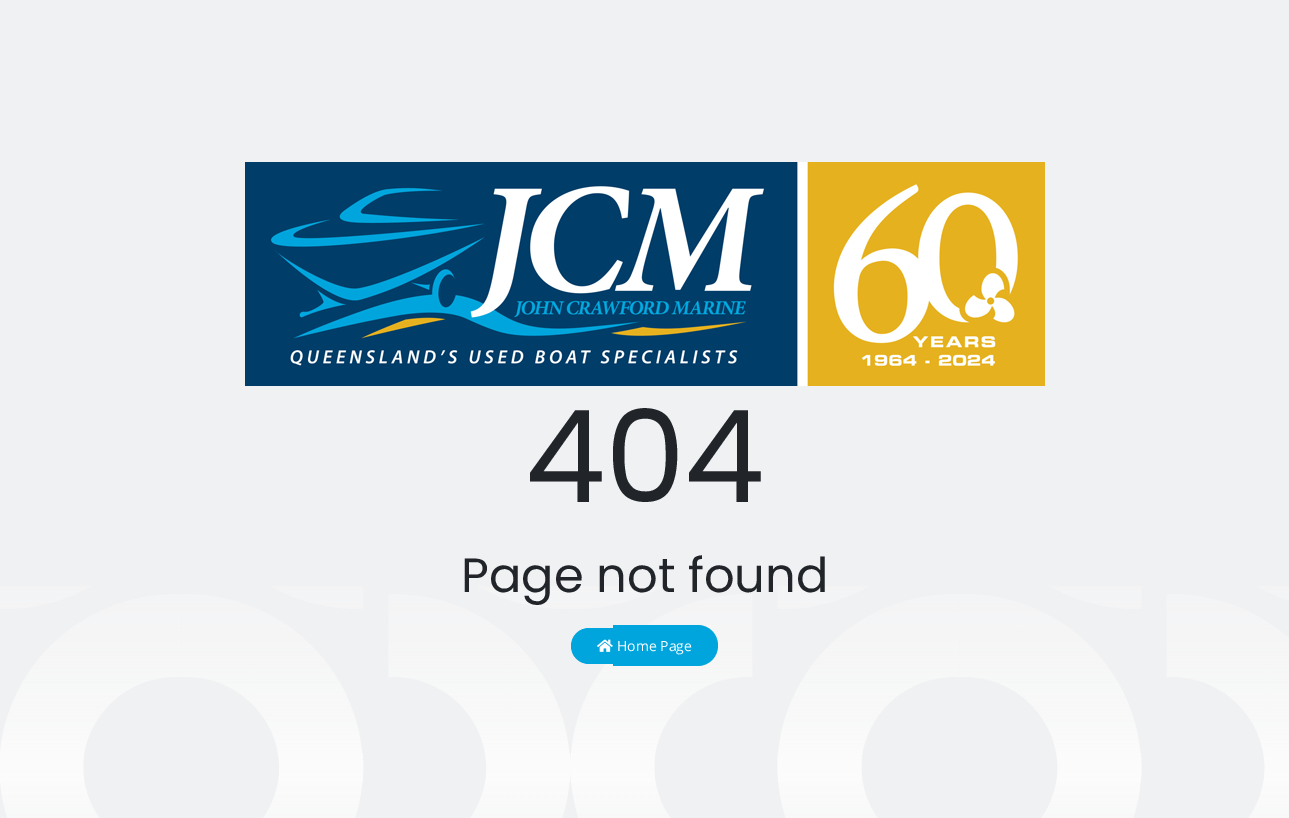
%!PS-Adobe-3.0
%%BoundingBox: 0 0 1289 818
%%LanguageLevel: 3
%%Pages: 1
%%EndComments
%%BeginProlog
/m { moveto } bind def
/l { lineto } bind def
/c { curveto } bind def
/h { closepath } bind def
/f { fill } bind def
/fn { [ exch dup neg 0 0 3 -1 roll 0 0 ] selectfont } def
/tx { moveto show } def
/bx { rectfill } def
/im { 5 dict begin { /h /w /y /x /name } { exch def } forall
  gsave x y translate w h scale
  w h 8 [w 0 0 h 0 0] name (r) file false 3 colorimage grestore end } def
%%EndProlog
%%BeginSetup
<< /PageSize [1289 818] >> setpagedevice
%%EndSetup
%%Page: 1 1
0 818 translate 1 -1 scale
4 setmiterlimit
0.941 0.945 0.953 setrgbcolor
0 0 1289 818 bx
(image0.raw) 0 586 1289 232 im
(image1.raw) 245 162 800 224 im
/Poppins-Regular 128 fn
0.129 0.145 0.161 setrgbcolor
525 502 m -1 0 (404) ashow
/Poppins-Regular 48 fn
(Page not found) 461 592 tx
0 0.647 0.867 setrgbcolor
589 628 m 613 628 l 613 664 l 589 664 l 579 664 571 656 571 646 c 571 636 579 628 589 628 c h f
613 625 m 697.5 625 l 709 625 718 634 718 645.5 c 718 657 709 666 697.5 666 c 613 666 l h f
(image2.raw) 597 639 16 13 im
/OpenSans-Regular 14 fn
1 setgray
(Home Page) 617 651 tx
showpage
%%EOF
